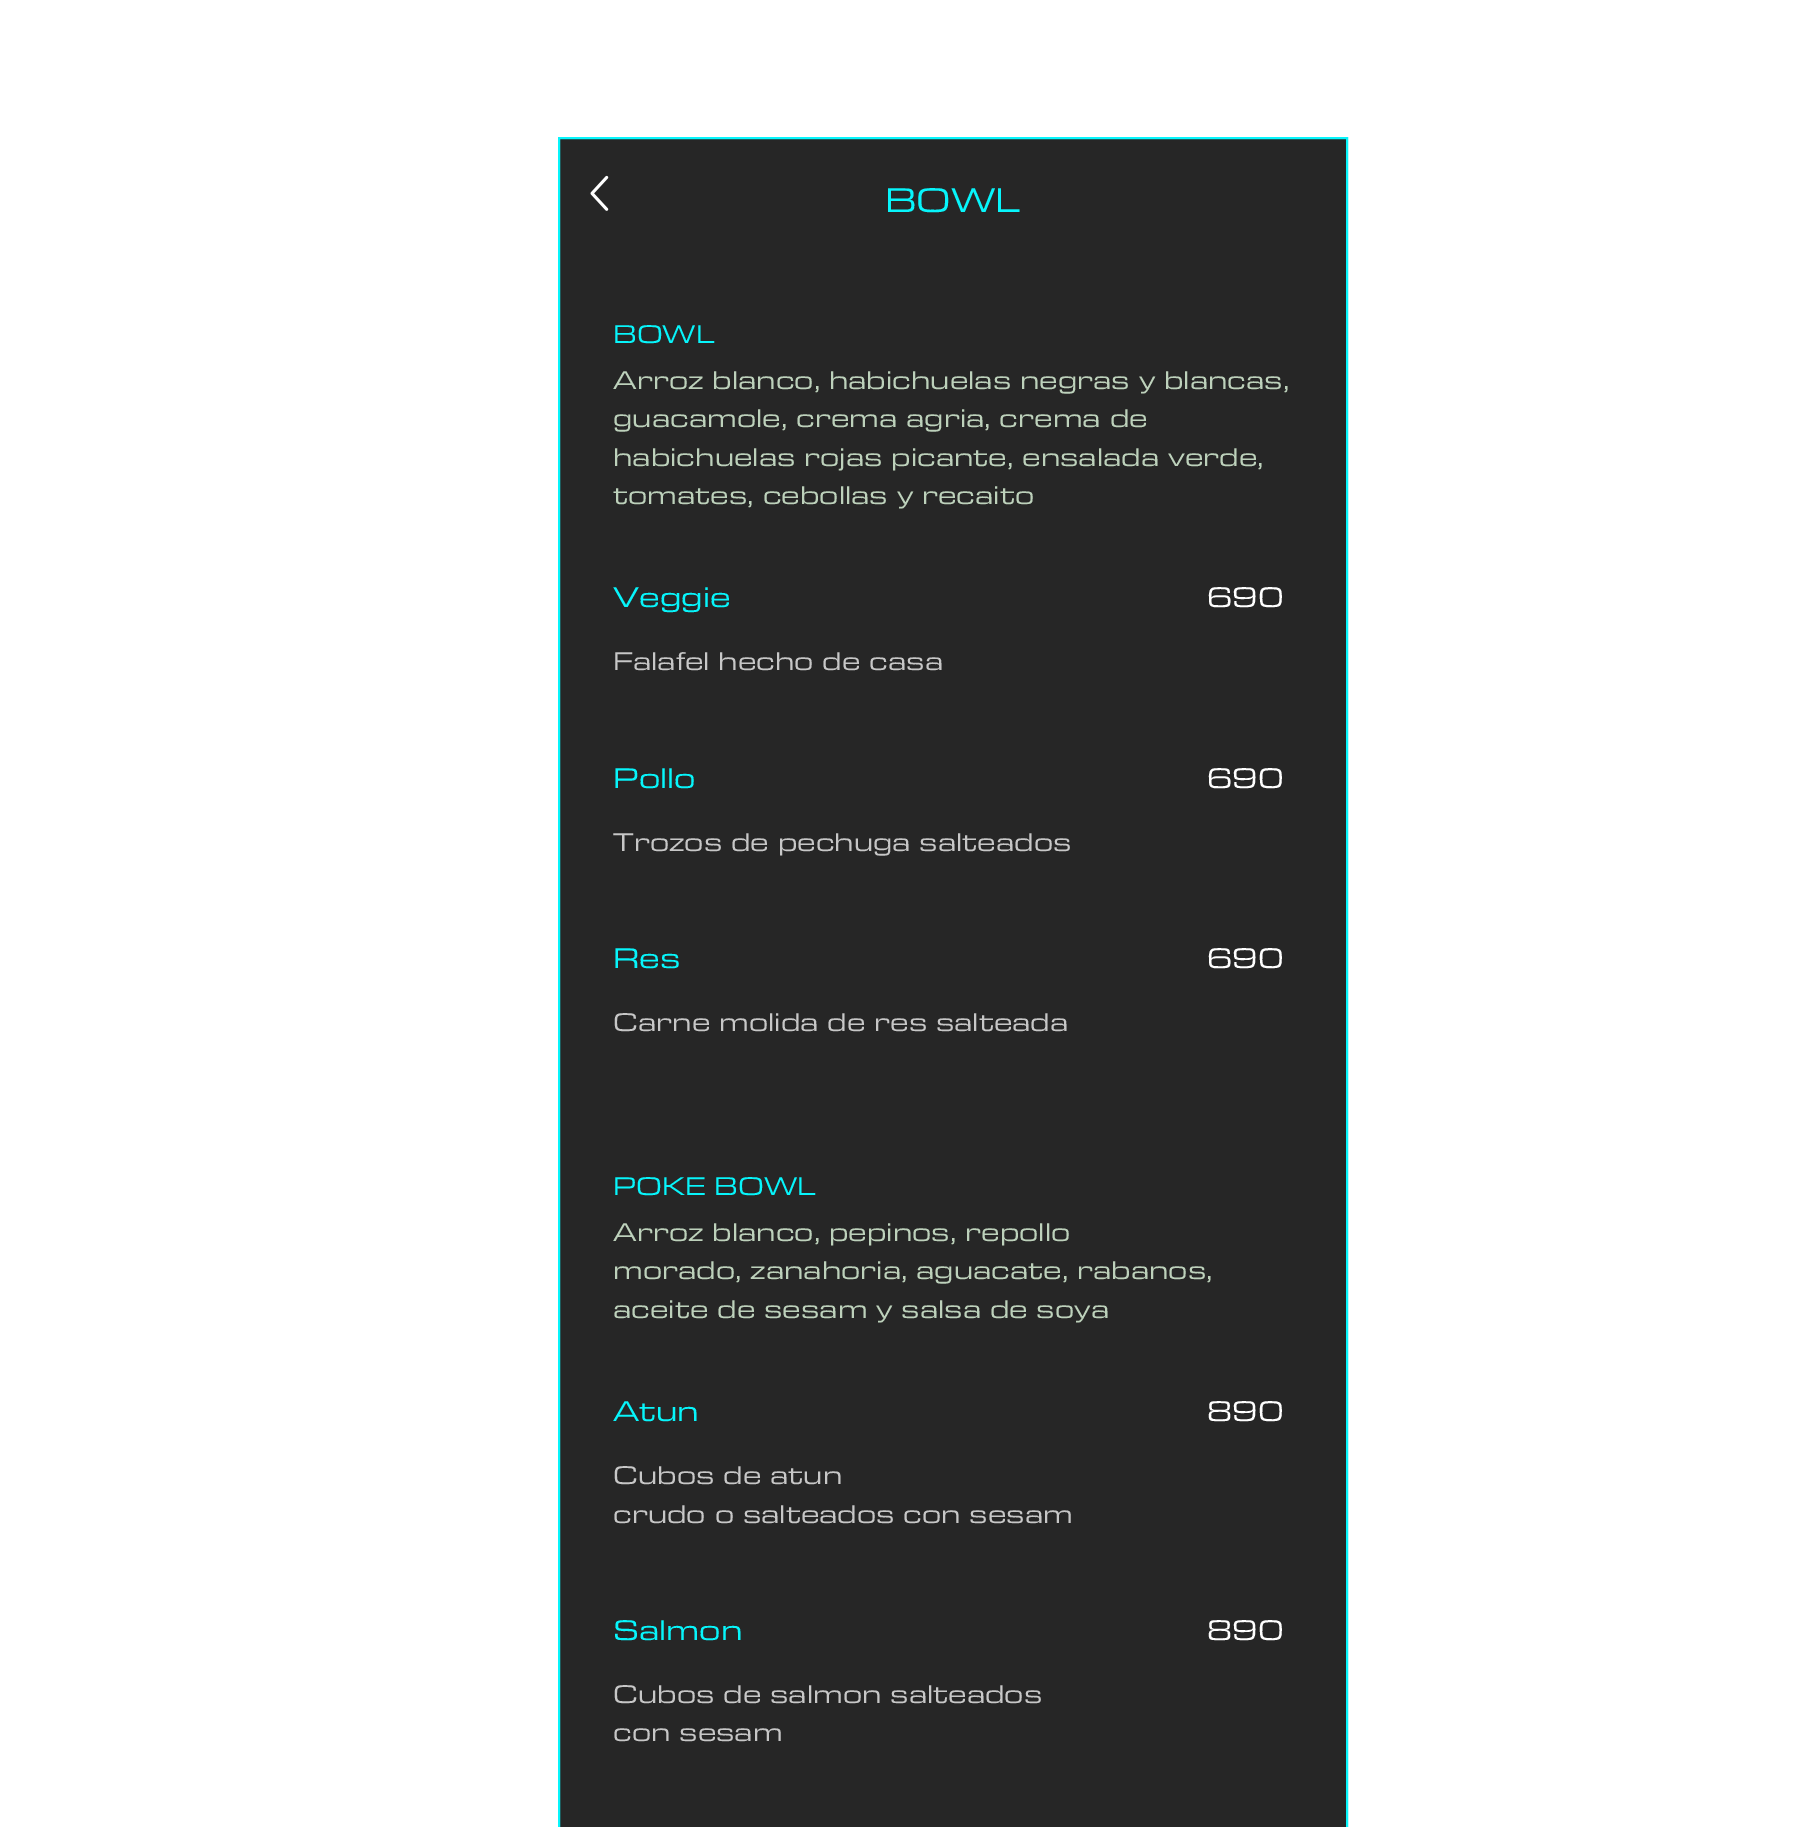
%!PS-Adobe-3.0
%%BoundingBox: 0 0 1805 1827
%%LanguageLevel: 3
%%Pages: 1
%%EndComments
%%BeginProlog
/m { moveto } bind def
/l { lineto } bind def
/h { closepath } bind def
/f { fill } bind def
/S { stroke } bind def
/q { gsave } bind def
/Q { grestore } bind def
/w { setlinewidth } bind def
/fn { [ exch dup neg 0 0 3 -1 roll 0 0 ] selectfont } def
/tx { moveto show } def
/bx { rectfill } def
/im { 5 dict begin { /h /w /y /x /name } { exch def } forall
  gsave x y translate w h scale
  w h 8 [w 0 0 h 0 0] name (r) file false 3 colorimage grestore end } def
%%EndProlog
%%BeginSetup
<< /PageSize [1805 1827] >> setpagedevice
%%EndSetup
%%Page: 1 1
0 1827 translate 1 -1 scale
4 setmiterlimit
1 setgray
0 0 1805 1827 bx
0.149 setgray
559 138 m 1347 138 l 1347 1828 l 559 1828 l h q f Q
0.027 0.961 0.984 setrgbcolor
2 w
S
(image0.raw) 590 175 19 36 im
/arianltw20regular-Regular 42 fn
(BOWL) 885 212 tx
/arianltw20regular-Regular 31.5 fn
(BOWL) 613 343 tx
0.741 0.82 0.733 setrgbcolor
(Arroz blanco, habichuelas negras y blancas,) 613 389 tx
(guacamole, crema agria, crema de) 613 427 tx
(habichuelas rojas picante, ensalada verde,) 613 466 tx
(tomates, cebollas y recaito) 613 504 tx
/arianltw20regular-Regular 35 fn
0.027 0.961 0.984 setrgbcolor
(Veggie) 613 607 tx
1 setgray
(690) 1207 607 tx
/arianltw20regular-Regular 31.5 fn
0.78 setgray
(Falafel hecho de casa) 613 670 tx
/arianltw20regular-Regular 35 fn
0.027 0.961 0.984 setrgbcolor
(Pollo) 613 788 tx
1 setgray
(690) 1207 788 tx
/arianltw20regular-Regular 31.5 fn
0.78 setgray
(Trozos de pechuga salteados) 613 851 tx
/arianltw20regular-Regular 35 fn
0.027 0.961 0.984 setrgbcolor
(Res) 613 968 tx
1 setgray
(690) 1207 968 tx
/arianltw20regular-Regular 31.5 fn
0.78 setgray
(Carne molida de res salteada) 613 1031 tx
0.027 0.961 0.984 setrgbcolor
(POKE BOWL) 613 1195 tx
0.741 0.82 0.733 setrgbcolor
(Arroz blanco, pepinos, repollo) 613 1241 tx
(morado, zanahoria, aguacate, rabanos,) 613 1279 tx
(aceite de sesam y salsa de soya) 613 1318 tx
/arianltw20regular-Regular 35 fn
0.027 0.961 0.984 setrgbcolor
(Atun) 613 1421 tx
1 setgray
(890) 1207 1421 tx
/arianltw20regular-Regular 31.5 fn
0.78 setgray
(Cubos de atun) 613 1484 tx
(crudo o salteados con sesam) 613 1523 tx
/arianltw20regular-Regular 35 fn
0.027 0.961 0.984 setrgbcolor
(Salmon) 613 1640 tx
1 setgray
(890) 1207 1640 tx
/arianltw20regular-Regular 31.5 fn
0.78 setgray
(Cubos de salmon salteados) 613 1703 tx
(con sesam) 613 1741 tx
showpage
%%EOF
